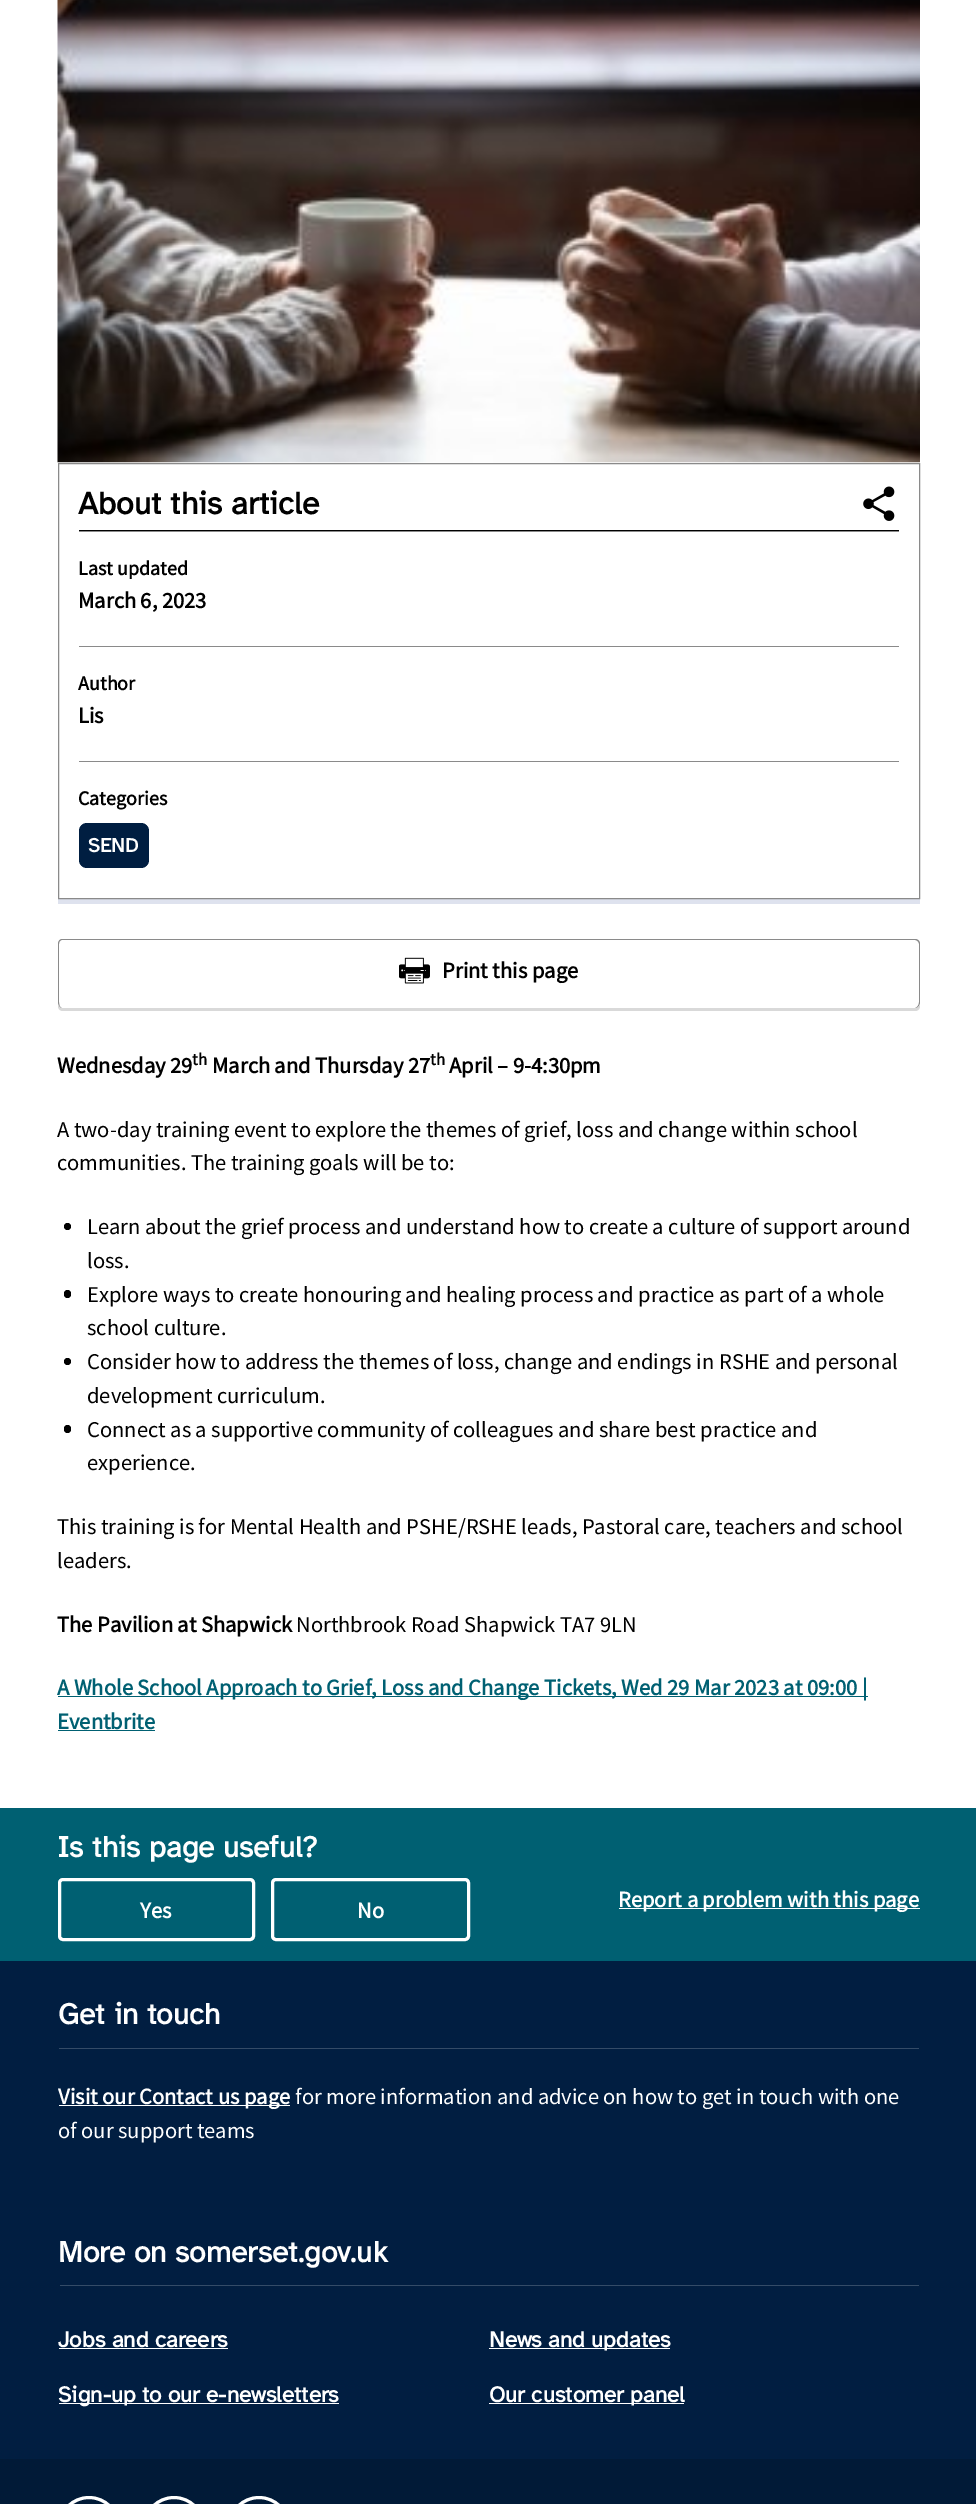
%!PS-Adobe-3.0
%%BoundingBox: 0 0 976 2504
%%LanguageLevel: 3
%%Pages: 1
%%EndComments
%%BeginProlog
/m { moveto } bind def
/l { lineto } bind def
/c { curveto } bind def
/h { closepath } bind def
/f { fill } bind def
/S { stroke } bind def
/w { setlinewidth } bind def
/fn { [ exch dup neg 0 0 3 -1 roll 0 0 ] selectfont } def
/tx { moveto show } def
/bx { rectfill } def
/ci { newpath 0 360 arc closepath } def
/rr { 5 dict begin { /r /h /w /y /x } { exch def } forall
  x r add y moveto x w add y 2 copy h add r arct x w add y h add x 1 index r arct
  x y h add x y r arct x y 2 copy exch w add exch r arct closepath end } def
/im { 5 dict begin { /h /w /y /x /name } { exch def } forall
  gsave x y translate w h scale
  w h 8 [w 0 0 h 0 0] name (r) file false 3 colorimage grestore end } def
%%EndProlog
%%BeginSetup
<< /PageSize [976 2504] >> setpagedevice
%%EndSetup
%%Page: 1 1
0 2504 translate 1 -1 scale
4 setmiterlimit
1 setgray
0 0 976 2504 bx
(image0.raw) 57 0 863 463 im
0.871 0.886 0.933 setrgbcolor
58 899 862 5 bx
0.541 setgray
58.5 463.5 861 435 rectstroke
0 setgray
79 530 820 1 bx
/AtkinsonHyperlegible-Bold 32 fn
(About this article) 78 514 tx
(image1.raw) 863 486 32 35 im
0.541 setgray
79 531 820 1 bx
/SourceSansPro-Bold 20 fn
0 setgray
(Last updated) 78 575 tx
/SourceSansPro-Bold 22.5 fn
(March 6, 2023) 78 608 tx
0.541 setgray
79 646 820 1 bx
/SourceSansPro-Bold 20 fn
0 setgray
(Author) 78 690 tx
/SourceSansPro-Bold 22.5 fn
(Lis) 78 723 tx
0.541 setgray
79 761 820 1 bx
/SourceSansPro-Bold 20 fn
0 setgray
(Categories) 78 805 tx
0 0.118 0.255 setrgbcolor
79 823 70 45 8 rr f
/AtkinsonHyperlegible-Bold 20 fn
1 setgray
(SEND) 88 852 tx
0.851 setgray
58 1005 m 58 1006 l 58 1009 60 1011 63 1011 c 915 1011 l 918 1011 920 1009 920 1006 c 920 1002 l 920 1005 918 1008 915 1008 c 62 1008 l 61 1008 59 1006 58 1005 c h f
1 setgray
58 939 862 69 5 rr f
0.541 setgray
62 939 m 915 939 l 918 939 920 941 920 944 c 920 1002 l 920 1005 918 1008 915 1008 c 62 1008 l 60 1008 58 1005 58 1002 c 58 944 l 58 941 60 939 62 939 c h 62 940 m 915 940 l 917 940 919 942 919 944 c 919 1002 l 919 1005 917 1008 915 1008 c 62 1008 l 60 1008 59 1005 59 1002 c 59 944 l 59 942 60 940 62 940 c h eofill
(image2.raw) 399 957 31 27 im
/SourceSansPro-Bold 22.5 fn
0 setgray
(Print this page) 442 978 tx
(Wednesday 29) 57 1073 tx
/SourceSansPro-Bold 17 fn
(th) 192 1065 tx
/SourceSansPro-Bold 22.5 fn
(March and Thursday 27) 212 1073 tx
/SourceSansPro-Bold 17 fn
(th) 430 1065 tx
/SourceSansPro-Bold 22.5 fn
(April – 9-4:30pm) 449 1073 tx
/SourceSansPro-Regular 22.5 fn
(A two-day training event to explore the themes of grief, loss and change within school) 57 1137 tx
(communities. The training goals will be to:) 57 1170 tx
67.5 1226.5 3.5 ci f
(Learn about the grief process and understand how to create a culture of support around) 87 1234 tx
(loss.) 87 1268 tx
64 1290 7 8 3.5 rr f
(Explore ways to create honouring and healing process and practice as part of a whole) 87 1302 tx
(school culture.) 87 1335 tx
67.5 1361.5 3.5 ci f
(Consider how to address the themes of loss, change and endings in RSHE and personal) 87 1369 tx
(development curriculum.) 87 1403 tx
64 1425 7 8 3.5 rr f
(Connect as a supportive community of colleagues and share best practice and) 87 1437 tx
(experience.) 87 1470 tx
(This training is for Mental Health and PSHE/RSHE leads, Pastoral care, teachers and school) 57 1534 tx
(leaders.) 57 1568 tx
/SourceSansPro-Bold 22.5 fn
(The Pavilion at Shapwick) 57 1632 tx
/SourceSansPro-Regular 22.5 fn
(Northbrook Road Shapwick TA7 9LN) 296 1632 tx
0 0.376 0.447 setrgbcolor
58 1696 810 1 bx
/SourceSansPro-Bold 22.5 fn
(A Whole School Approach to Grief, Loss and Change Tickets, Wed 29 Mar 2023 at 09:00 |) 57 1695 tx
(Eventbrite) 57 1729 tx
58 1730 97 1 bx
0 1808 976 153 bx
/AtkinsonHyperlegible-Bold 30 fn
1 setgray
(Is this page useful?) 57 1857 tx
3 w
59.5 1879.5 194 60 3.5 rr S
/SourceSansPro-Bold 22.5 fn
(Yes) 140 1918 tx
272.5 1879.5 196 60 3.5 rr S
(No) 357 1918 tx
619 1908 301 1 bx
(Report a problem with this page) 618 1907 tx
0.004 0.118 0.255 setrgbcolor
0 1961 976 498 bx
0.204 0.294 0.404 setrgbcolor
59 2048 860 1 bx
/AtkinsonHyperlegible-Bold 30 fn
1 setgray
(Get in touch) 58 2024 tx
59 2105 231 1 bx
/SourceSansPro-Bold 22.5 fn
(Visit our Contact us page) 58 2104 tx
/SourceSansPro-Regular 22.5 fn
(for more information and advice on how to get in touch with one) 295 2104 tx
(of our support teams) 58 2138 tx
0.204 0.294 0.404 setrgbcolor
60 2285 859 1 bx
/AtkinsonHyperlegible-Bold 30 fn
1 setgray
(More on somerset.gov.uk) 58 2262 tx
/AtkinsonHyperlegible-Bold 22.5 fn
(Jobs and careers) 58 2347 tx
59 2348 169 1 bx
489 2348 181 1 bx
(News and updates) 489 2347 tx
59 2403 280 1 bx
(Sign-up to our e-newsletters) 58 2402 tx
489 2403 195 1 bx
(Our customer panel) 489 2402 tx
0.004 0.102 0.216 setrgbcolor
0 2459 976 45 bx
1 setgray
59.5 2497.5 59 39 29.5 rr S
144.5 2497.5 59 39 29.5 rr S
229.5 2497.5 59 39 29.5 rr S
showpage
%%EOF
